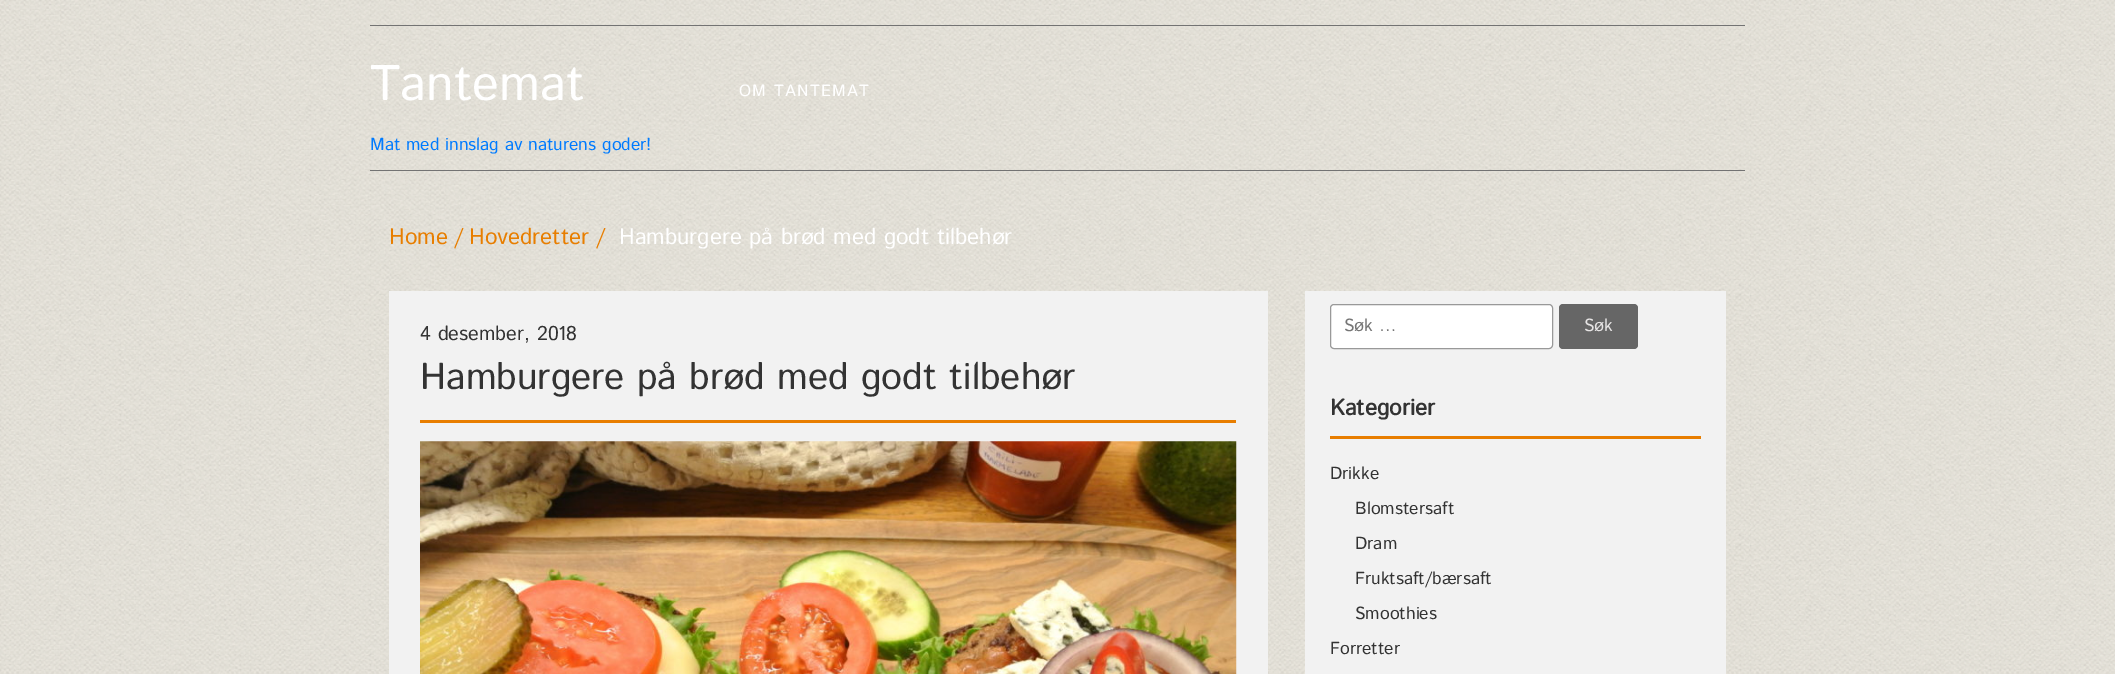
%!PS-Adobe-3.0
%%BoundingBox: 0 0 2115 674
%%LanguageLevel: 3
%%Pages: 1
%%EndComments
%%BeginProlog
/m { moveto } bind def
/f { fill } bind def
/S { stroke } bind def
/q { gsave } bind def
/Q { grestore } bind def
/fn { [ exch dup neg 0 0 3 -1 roll 0 0 ] selectfont } def
/tx { moveto show } def
/bx { rectfill } def
/rr { 5 dict begin { /r /h /w /y /x } { exch def } forall
  x r add y moveto x w add y 2 copy h add r arct x w add y h add x 1 index r arct
  x y h add x y r arct x y 2 copy exch w add exch r arct closepath end } def
/im { 5 dict begin { /h /w /y /x /name } { exch def } forall
  gsave x y translate w h scale
  w h 8 [w 0 0 h 0 0] name (r) file false 3 colorimage grestore end } def
%%EndProlog
%%BeginSetup
<< /PageSize [2115 674] >> setpagedevice
%%EndSetup
%%Page: 1 1
0 674 translate 1 -1 scale
4 setmiterlimit
1 setgray
0 0 2115 674 bx
(image0.raw) 0 0 2115 674 im
0.451 setgray
370 25 1375 1 bx
370 170 1375 1 bx
/IstokWeb-Regular 50 fn
1 setgray
(Tantemat) 370 100 tx
/IstokWeb-Regular 17.5 fn
0 0.482 1 setrgbcolor
(Mat med innslag av naturens goder!) 370 150 tx
/IstokWeb-Regular 16.25 fn
1 setgray
739 96 m 1.25 0 (OM TANTEMAT) ashow
/IstokWeb-Regular 22.5 fn
0.91 0.494 0 setrgbcolor
(Home) 389 244 tx
(/) 454 244 tx
(Hovedretter) 469 244 tx
(/) 596 244 tx
1 setgray
(Hamburgere på brød med godt tilbehør) 619 244 tx
0.949 setgray
389 291 879 383 bx
/IstokWeb-Regular 20 fn
0.2 setgray
(4 desember, 2018) 420 340 tx
0.91 0.494 0 setrgbcolor
420 420 816 3 bx
/IstokWeb-Regular 37.5 fn
0.2 setgray
(Hamburgere på brød med godt tilbehør) 420 389 tx
(image1.raw) 420 441 817 233 im
0.949 setgray
1305 291 421 383 bx
1 setgray
1330.5 304.5 222 44 3.5 rr q f Q
0.6 setgray
S
/IstokWeb-Regular 17.5 fn
0.459 setgray
(Søk …) 1344 331 tx
0.4 setgray
1559 304 79 45 4 rr f
0.906 0.898 0.898 setrgbcolor
(Søk) 1584 331 tx
0.91 0.494 0 setrgbcolor
1330 436 371 3 bx
/IstokWeb-Bold 22.5 fn
0.2 setgray
(Kategorier) 1330 415 tx
/IstokWeb-Regular 17.5 fn
(Drikke) 1330 479 tx
(Blomstersaft) 1355 514 tx
(Dram) 1355 549 tx
(Fruktsaft/bærsaft) 1355 584 tx
(Smoothies) 1355 619 tx
(Forretter) 1330 654 tx
showpage
%%EOF
